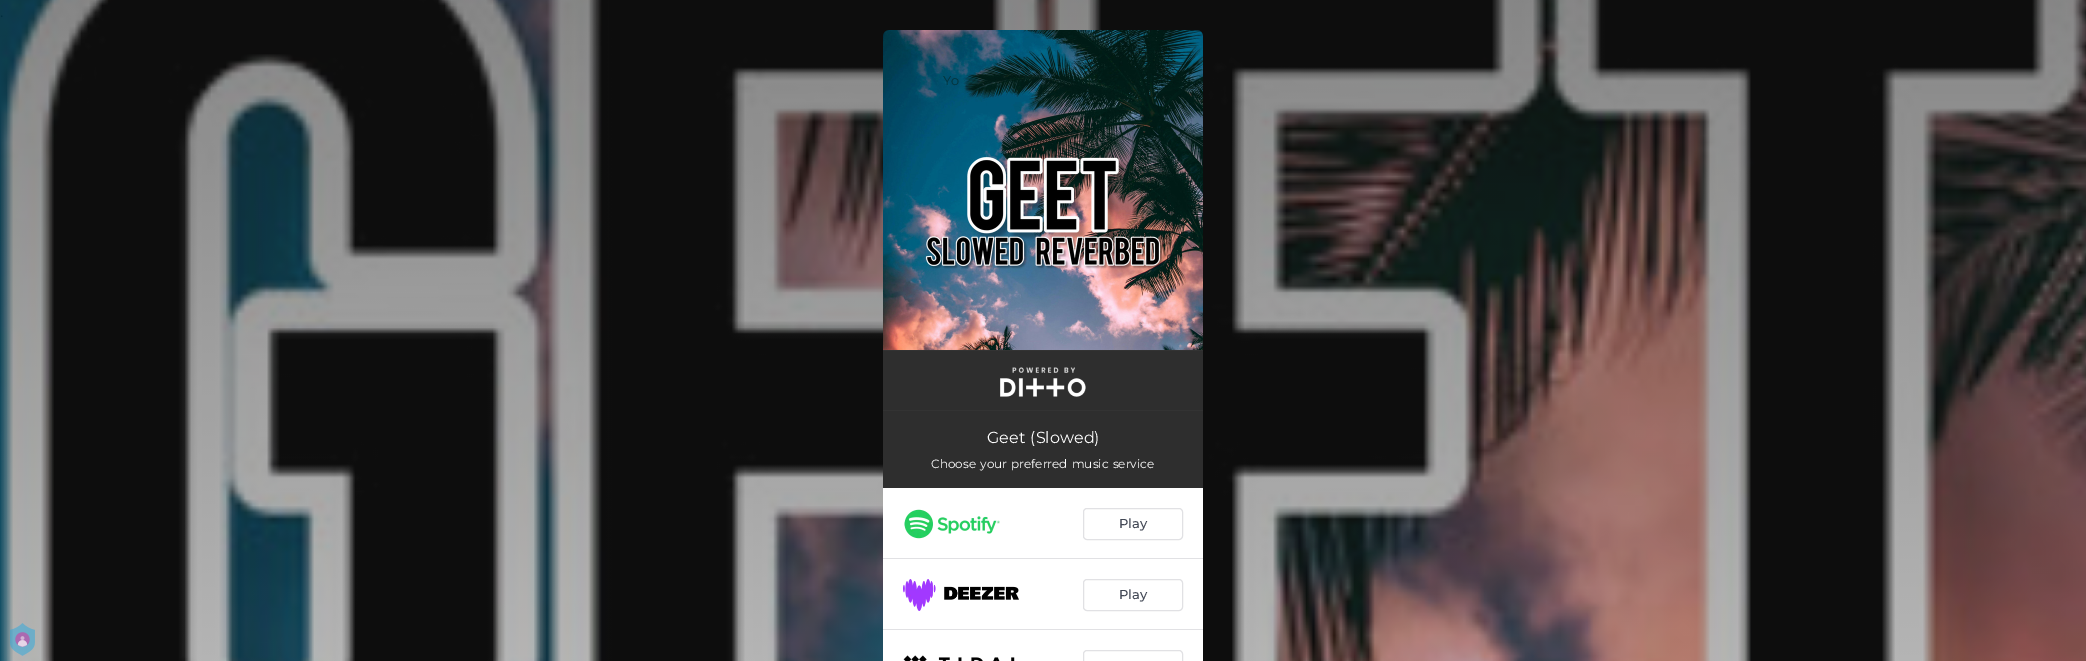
%!PS-Adobe-3.0
%%BoundingBox: 0 0 2086 661
%%LanguageLevel: 3
%%Pages: 1
%%EndComments
%%BeginProlog
/m { moveto } bind def
/S { stroke } bind def
/fn { [ exch dup neg 0 0 3 -1 roll 0 0 ] selectfont } def
/tx { moveto show } def
/bx { rectfill } def
/rr { 5 dict begin { /r /h /w /y /x } { exch def } forall
  x r add y moveto x w add y 2 copy h add r arct x w add y h add x 1 index r arct
  x y h add x y r arct x y 2 copy exch w add exch r arct closepath end } def
/im { 5 dict begin { /h /w /y /x /name } { exch def } forall
  gsave x y translate w h scale
  w h 8 [w 0 0 h 0 0] name (r) file false 3 colorimage grestore end } def
%%EndProlog
%%BeginSetup
<< /PageSize [2086 661] >> setpagedevice
%%EndSetup
%%Page: 1 1
0 661 translate 1 -1 scale
4 setmiterlimit
1 setgray
0 0 2086 661 bx
(image0.raw) 0 0 2086 661 im
(image1.raw) 883 30 320 320 im
/Montserrat-Regular 13 fn
0.02 0.2 0.227 setrgbcolor
943 85 m 1 0 32 (Yo) widthshow
0.18 setgray
883 351 320 59 bx
0.2 setgray
883 350 320 1 bx
883 410 320 1 bx
(image2.raw) 1000 367 86 30 im
0.18 setgray
883 411 320 77 bx
/Montserrat-Regular 16 fn
1 setgray
987 443 m 1 0 32 (Geet \(Slowed\)) widthshow
/Montserrat-Regular 12 fn
931 468 m 1 0 32 (Choose your preferred music service) widthshow
883 488 320 173 bx
0.882 0.882 0.894 setrgbcolor
883 558 320 1 bx
(image3.raw) 904 509 96 30 im
1083.5 508.5 99 31 3.5 rr S
/Montserrat-Medium 13 fn
0.255 0.278 0.329 setrgbcolor
(Play) 1119 528 tx
0.882 0.882 0.894 setrgbcolor
883 629 320 1 bx
(image4.raw) 903 579 116 32 im
1083.5 579.5 99 31 3.5 rr S
0.255 0.278 0.329 setrgbcolor
(Play) 1119 599 tx
(image5.raw) 903 655 112 6 im
0.882 0.882 0.894 setrgbcolor
1083.5 650.5 99 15 3.5 rr S
(image6.raw) 10 623 25 33 im
showpage
%%EOF
